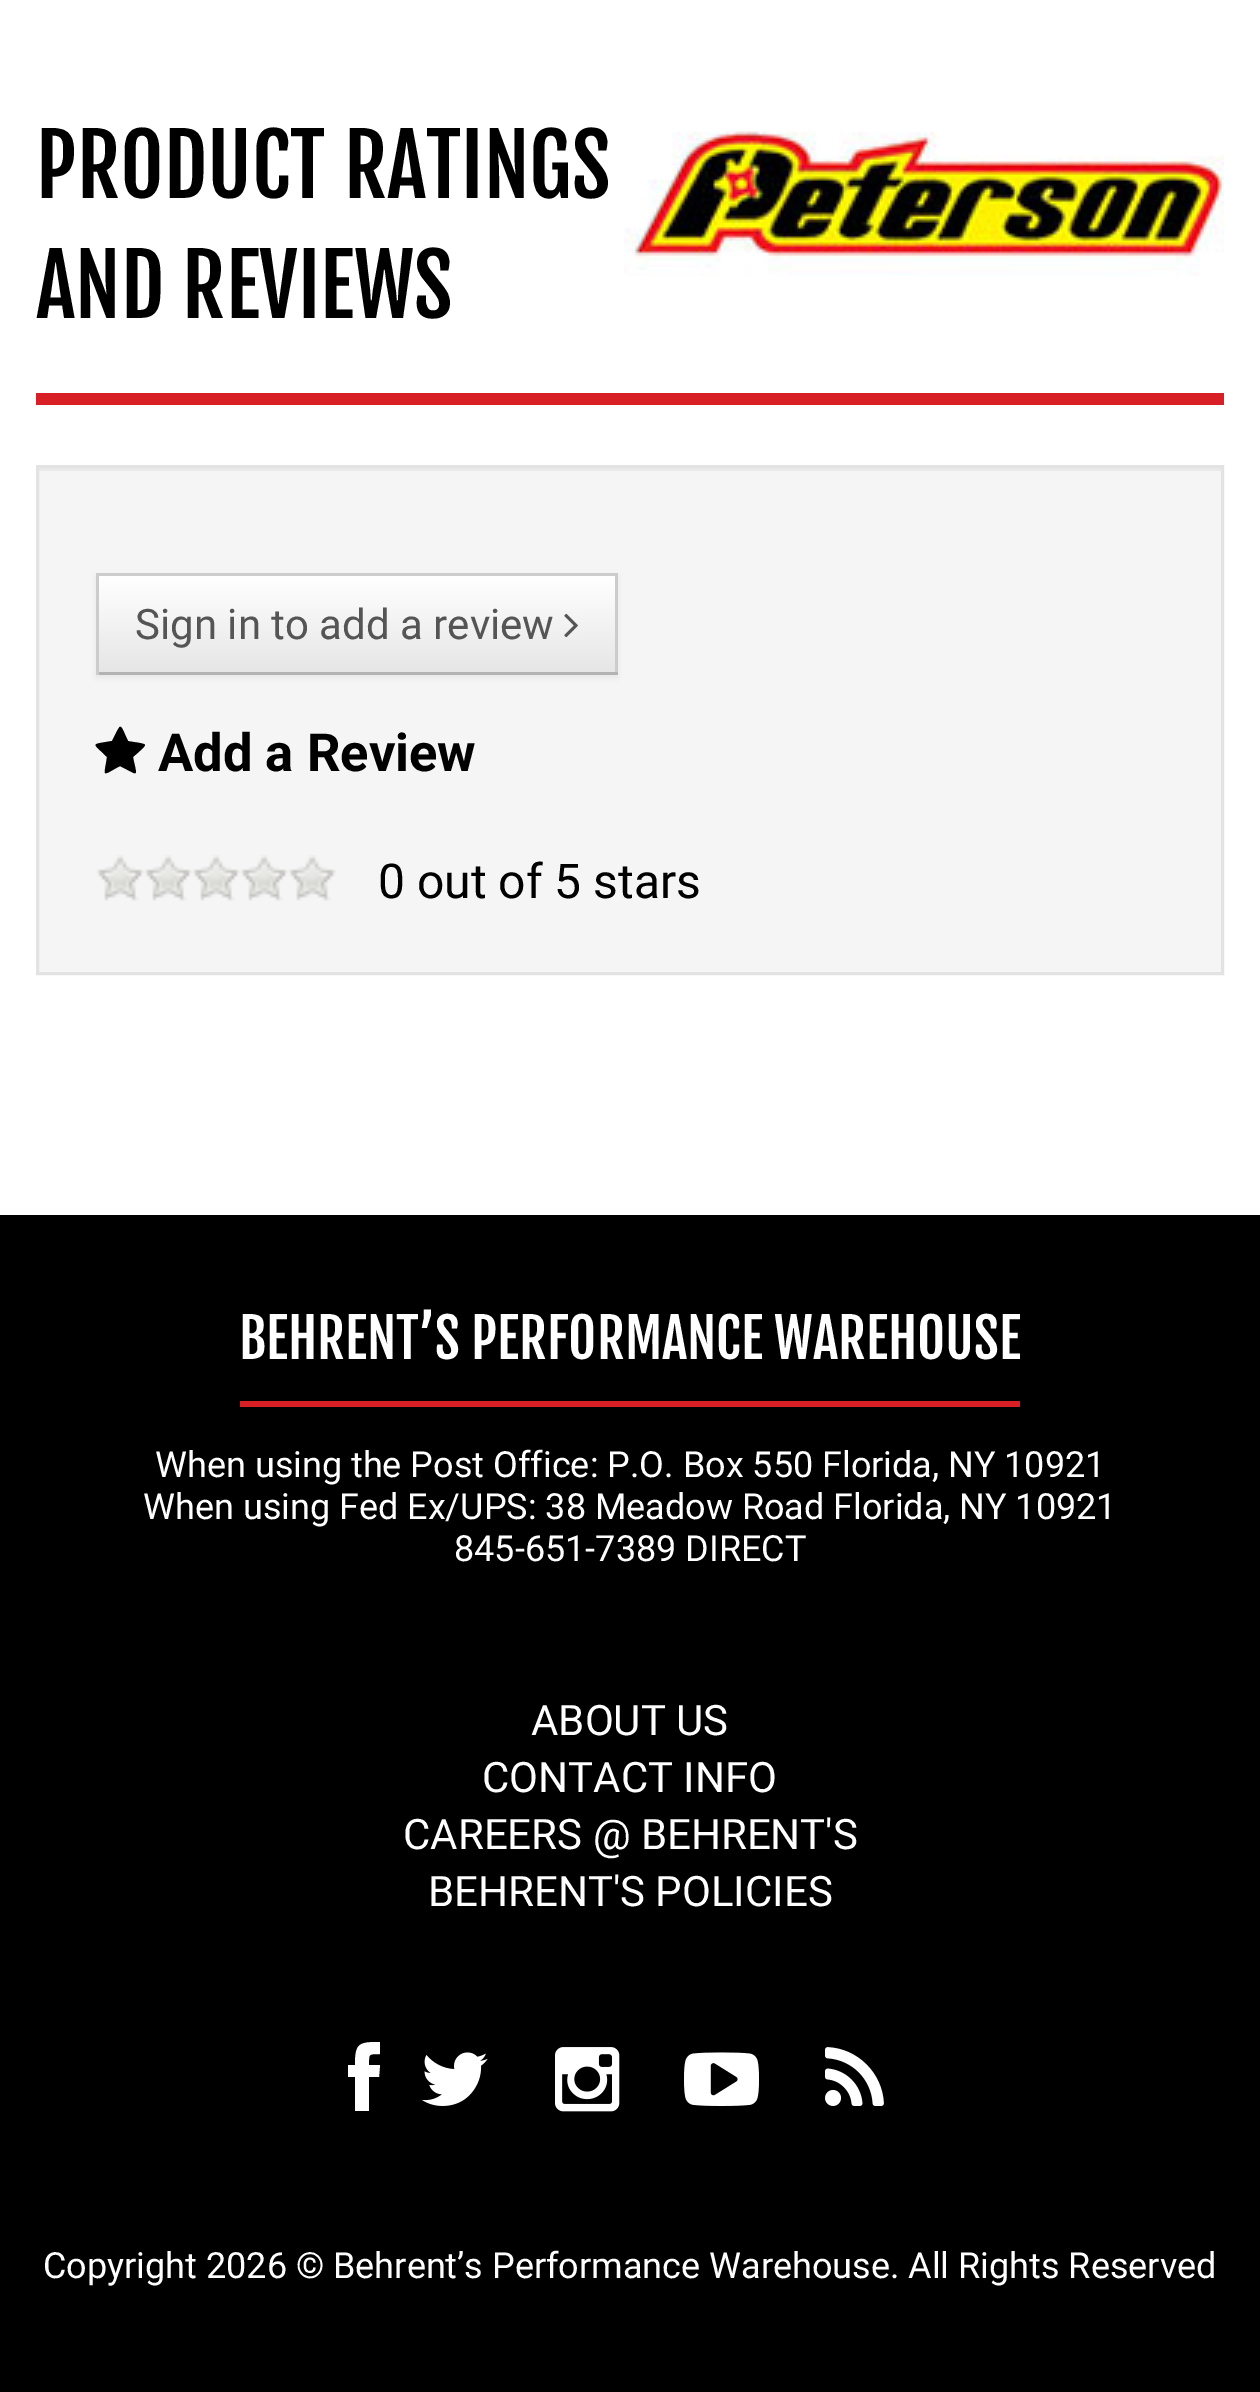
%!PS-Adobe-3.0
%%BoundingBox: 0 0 1260 2392
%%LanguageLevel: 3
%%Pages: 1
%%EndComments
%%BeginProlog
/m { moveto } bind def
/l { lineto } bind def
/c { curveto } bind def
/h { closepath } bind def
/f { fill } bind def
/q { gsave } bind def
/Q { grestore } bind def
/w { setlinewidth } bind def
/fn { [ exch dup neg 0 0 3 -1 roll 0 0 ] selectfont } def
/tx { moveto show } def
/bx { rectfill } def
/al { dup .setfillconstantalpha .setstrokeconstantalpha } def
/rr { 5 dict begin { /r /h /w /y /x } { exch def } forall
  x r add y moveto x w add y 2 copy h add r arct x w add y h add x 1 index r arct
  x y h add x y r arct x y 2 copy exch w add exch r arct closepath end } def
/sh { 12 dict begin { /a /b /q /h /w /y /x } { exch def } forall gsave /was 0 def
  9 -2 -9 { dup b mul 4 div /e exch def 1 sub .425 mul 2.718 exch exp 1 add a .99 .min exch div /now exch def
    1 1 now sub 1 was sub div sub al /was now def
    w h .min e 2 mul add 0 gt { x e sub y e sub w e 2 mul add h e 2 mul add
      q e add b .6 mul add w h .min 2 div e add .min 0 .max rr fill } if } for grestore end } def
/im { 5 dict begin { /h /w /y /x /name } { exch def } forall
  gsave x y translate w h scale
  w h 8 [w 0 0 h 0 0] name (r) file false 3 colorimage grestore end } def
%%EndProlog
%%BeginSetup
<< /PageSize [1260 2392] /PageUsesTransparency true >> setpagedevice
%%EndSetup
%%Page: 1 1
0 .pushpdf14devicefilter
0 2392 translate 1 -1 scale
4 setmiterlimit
1 setgray
0 0 1260 2392 bx
0.851 0.122 0.149 setrgbcolor
36 393 1188 12 bx
/FjallaOne-Regular 84 fn
0 setgray
(PRODUCT RATINGS) 36 198 tx
(AND REVIEWS) 36 318 tx
0.961 setgray
39 471 1182 501 bx
0.914 setgray
39 468 1182 3 bx
0.89 setgray
3 w
37.5 466.5 1185 507 rectstroke
0 setgray
96 576 522 102 0 3 0.05 sh
q 99 576 m 615 576 l 615 672 l 99 672 l h clip newpath
<< /ShadingType 2 /ColorSpace /DeviceRGB /Coords [357 576 357 672] /Extend [true true] /Function << /FunctionType 2 /Domain [0 1] /C0 [1 1 1] /C1 [0.902 0.902 0.902] /N 1 >> >> shfill Q
0.8 setgray
96 573 522 3 bx
615 573 3 102 bx
0.702 setgray
96 672 522 3 bx
0.8 setgray
96 573 3 102 bx
/Roboto-Regular 42 fn
0.333 setgray
(Sign in to add a review) 135 639 tx
(image0.raw) 564 613 14 25 im
0 setgray
145 745 m 145 747 135 755 133 757 c 137 778 140 776 120 766 c 101 776 104 778 107 757 c 92 742 90 745 112 741 c 122 722 119 722 128 741 c 131 742 145 743 145 745 c h f
/Roboto-Bold 52.5 fn
(Add a Review) 158 771 tx
(image1.raw) 96 855 48 46 im
(image1.raw) 144 855 48 46 im
(image1.raw) 192 855 48 46 im
(image1.raw) 240 855 48 46 im
(image2.raw) 288 855 48 46 im
/Roboto-Regular 48 fn
(0 out of 5 stars) 378 898 tx
(image3.raw) 624 131 600 145 im
0 1215 1260 1177 bx
0.851 0.122 0.149 setrgbcolor
240 1401 780 6 bx
/FjallaOne-Regular 54 fn
1 setgray
(BEHRENT’S PERFORMANCE WAREHOUSE) 239 1359 tx
/Roboto-Regular 36 fn
(When using the Post Office: P.O. Box 550 Florida, NY 10921) 155 1477 tx
(When using Fed Ex/UPS: 38 Meadow Road Florida, NY 10921) 143 1519 tx
(845-651-7389 DIRECT) 454 1561 tx
/Roboto-Regular 42 fn
(ABOUT US) 531 1735 tx
(CONTACT INFO) 482 1792 tx
(CAREERS @ BEHRENT'S) 403 1849 tx
(BEHRENT'S POLICIES) 428 1906 tx
369 2065 m 380 2065 l 379 2077 l 369 2077 l 369 2111 l 355 2111 l 355 2077 l 348 2077 l 348 2065 l 355 2065 l 355 2043 359 2042 380 2042 c 380 2054 l 368 2054 369 2054 369 2065 c h f
(image4.raw) 422 2052 66 54 im
(image5.raw) 555 2047 65 65 im
(image6.raw) 684 2052 75 54 im
(image7.raw) 825 2047 59 59 im
/Roboto-Regular 36 fn
(Copyright 2026 © Behrent’s Performance Warehouse. All Rights Reserved) 43 2278 tx
.poppdf14devicefilter showpage
%%EOF
